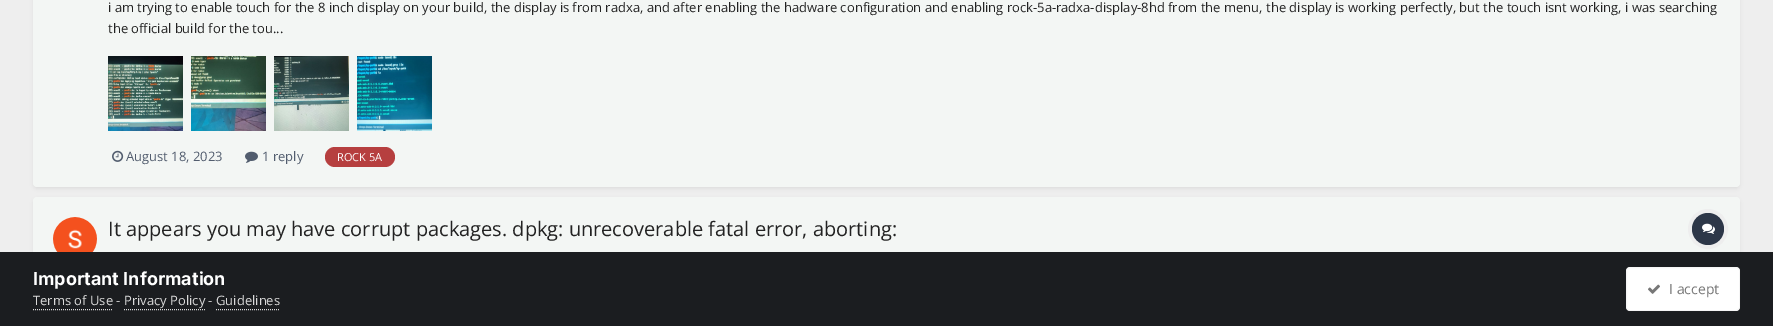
%!PS-Adobe-3.0
%%BoundingBox: 0 0 1773 326
%%LanguageLevel: 3
%%Pages: 1
%%EndComments
%%BeginProlog
/m { moveto } bind def
/l { lineto } bind def
/f { fill } bind def
/S { stroke } bind def
/w { setlinewidth } bind def
/fn { [ exch dup neg 0 0 3 -1 roll 0 0 ] selectfont } def
/tx { moveto show } def
/bx { rectfill } def
/al { dup .setfillconstantalpha .setstrokeconstantalpha } def
/ci { newpath 0 360 arc closepath } def
/rr { 5 dict begin { /r /h /w /y /x } { exch def } forall
  x r add y moveto x w add y 2 copy h add r arct x w add y h add x 1 index r arct
  x y h add x y r arct x y 2 copy exch w add exch r arct closepath end } def
/sh { 12 dict begin { /a /b /q /h /w /y /x } { exch def } forall gsave /was 0 def
  9 -2 -9 { dup b mul 4 div /e exch def 1 sub .425 mul 2.718 exch exp 1 add a .99 .min exch div /now exch def
    1 1 now sub 1 was sub div sub al /was now def
    w h .min e 2 mul add 0 gt { x e sub y e sub w e 2 mul add h e 2 mul add
      q e add b .6 mul add w h .min 2 div e add .min 0 .max rr fill } if } for grestore end } def
/im { 5 dict begin { /h /w /y /x /name } { exch def } forall
  gsave x y translate w h scale
  w h 8 [w 0 0 h 0 0] name (r) file false 3 colorimage grestore end } def
%%EndProlog
%%BeginSetup
<< /PageSize [1773 326] /PageUsesTransparency true >> setpagedevice
%%EndSetup
%%Page: 1 1
0 .pushpdf14devicefilter
0 326 translate 1 -1 scale
4 setmiterlimit
0.933 setgray
0 0 1773 326 bx
0.106 0.114 0.125 setrgbcolor
34 -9 1705 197 3 2 0.1 sh
0.953 0.965 0.957 setrgbcolor
33 -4 1707 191 4 rr f
/OpenSans-Regular 13 fn
0.133 setgray
(i am trying to enable touch for the 8 inch display on your build, the display is from radxa, and after enabling the hadware configuration and enabling rock-5a-radxa-display-8hd from the menu, the display is working perfectly, but the touch isnt working, i was searching) 108 12 tx
(the official build for the tou...) 108 33 tx
(image0.raw) 108 56 75 75 im
(image1.raw) 191 56 75 75 im
(image2.raw) 274 56 75 75 im
(image3.raw) 357 56 75 75 im
(image4.raw) 112 150 12 12 im
0.322 0.365 0.431 setrgbcolor
(August 18, 2023) 126 161 tx
(image5.raw) 245 151 13 12 im
(1 reply) 262 161 tx
0.714 0.247 0.247 setrgbcolor
325 147 70 20 10 rr f
/OpenSans-Regular 11 fn
1 setgray
(ROCK 5A) 337 161 tx
0.106 0.114 0.125 setrgbcolor
34 200 1705 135 3 2 0.1 sh
0.953 0.965 0.957 setrgbcolor
33 197 1707 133 4 rr f
(image6.raw) 53 217 44 35 im
/OpenSans-Regular 20 fn
0.133 setgray
(It appears you may have corrupt packages. dpkg: unrecoverable fatal error, aborting:) 108 236 tx
0.933 setgray
4 w
1708 229 18 ci S
0.176 0.216 0.282 setrgbcolor
1708 229 16 ci f
(image7.raw) 1702 223 13 11 im
0.106 0.114 0.125 setrgbcolor
0 252 1773 74 bx
/Inter-Bold 18 fn
1 setgray
(Important Information) 33 285 tx
/OpenSans-Regular 13 fn
0.855 setgray
(Terms of Use) 33 305 tx
1 w
[1 1] 0 setdash
33 309.5 m 113 309.5 l S
0.753 setgray
(-) 116 305 tx
0.855 setgray
(Privacy Policy) 124 305 tx
124 309.5 m 205 309.5 l S
0.753 setgray
(-) 208 305 tx
0.855 setgray
(Guidelines) 216 305 tx
216 309.5 m 280 309.5 l S
1 setgray
1626 267 114 44 4 rr f
0.07 al
0.467 setgray
[] 0 setdash
1626.5 267.5 113 43 3.5 rr S
1 al
(image8.raw) 1648 284 12 10 im
/OpenSans-Regular 14 fn
(I accept) 1669 294 tx
.poppdf14devicefilter showpage
%%EOF
